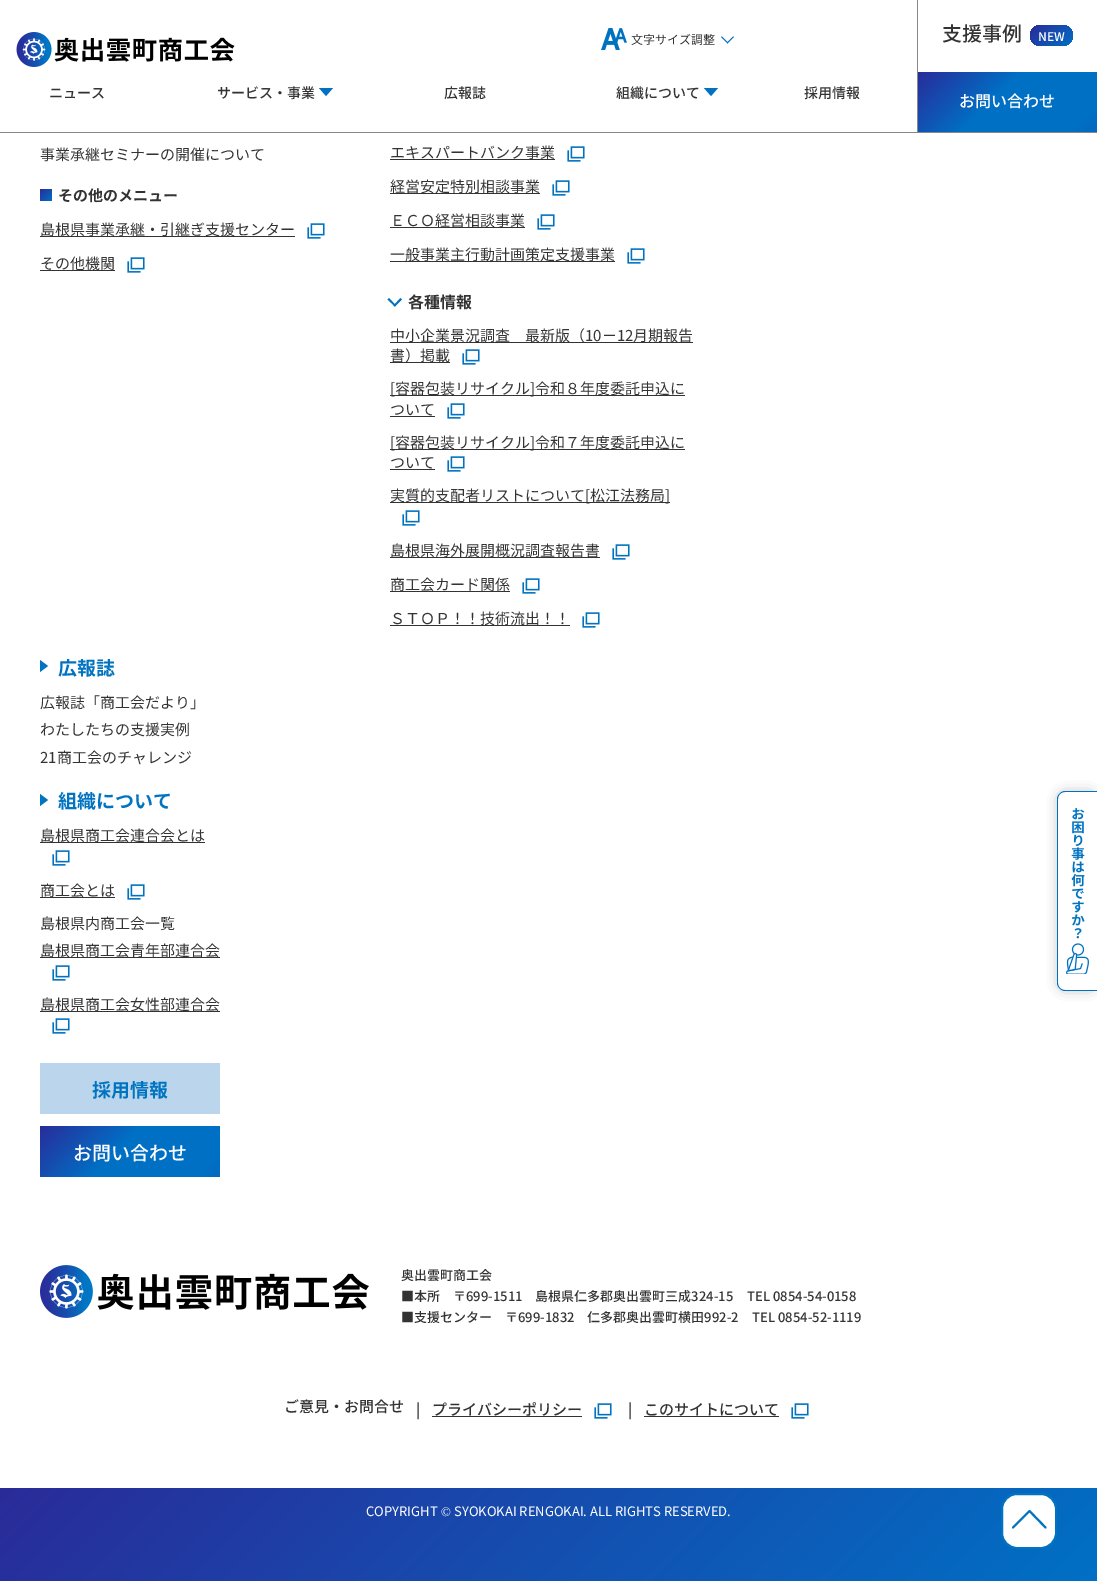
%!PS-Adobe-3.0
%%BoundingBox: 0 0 1097 1581
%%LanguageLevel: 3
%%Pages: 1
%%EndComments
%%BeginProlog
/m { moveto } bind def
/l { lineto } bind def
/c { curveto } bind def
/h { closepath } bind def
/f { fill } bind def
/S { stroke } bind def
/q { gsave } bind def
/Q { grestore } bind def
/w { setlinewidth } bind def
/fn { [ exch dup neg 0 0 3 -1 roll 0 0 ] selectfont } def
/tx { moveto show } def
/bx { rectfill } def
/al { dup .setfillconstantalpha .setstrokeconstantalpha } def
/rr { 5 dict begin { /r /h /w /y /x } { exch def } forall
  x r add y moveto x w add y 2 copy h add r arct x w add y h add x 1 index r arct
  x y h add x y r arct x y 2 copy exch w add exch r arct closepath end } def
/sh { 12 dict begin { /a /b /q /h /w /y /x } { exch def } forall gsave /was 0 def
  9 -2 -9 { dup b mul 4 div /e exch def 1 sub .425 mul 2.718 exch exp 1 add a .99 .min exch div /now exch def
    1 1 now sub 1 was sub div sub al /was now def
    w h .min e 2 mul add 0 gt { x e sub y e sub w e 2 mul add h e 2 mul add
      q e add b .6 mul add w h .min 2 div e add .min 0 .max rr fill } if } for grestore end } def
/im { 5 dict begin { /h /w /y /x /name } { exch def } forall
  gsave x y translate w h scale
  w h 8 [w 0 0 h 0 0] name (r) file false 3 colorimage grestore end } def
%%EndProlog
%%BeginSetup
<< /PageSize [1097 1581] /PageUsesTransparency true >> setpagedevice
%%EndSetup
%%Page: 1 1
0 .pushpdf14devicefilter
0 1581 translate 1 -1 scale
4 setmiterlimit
1 setgray
0 0 1097 1581 bx
0.533 setgray
0 132 1097 1 bx
(image0.raw) 16 32 219 35 im
(image1.raw) 601 28 26 22 im
/NotoSansJP-Regular 12 fn
0.2 setgray
(文字サイズ調整) 631 44 tx
0.004 0.447 0.745 setrgbcolor
733 36.5 m 734 37 l 727.5 43.5 l 727 42.5 l h f
722 36.5 m 728 42.5 l 727.5 43.5 l 721 37 l h f
0.533 setgray
917 0 1 132 bx
/NotoSansJP-Medium 20 fn
0.2 setgray
(支援事例) 942 41 tx
q 1030 25 43 21 10.5 rr clip newpath
<< /ShadingType 2 /ColorSpace /DeviceRGB /Coords [1036 20 1068 52] /Extend [true true] /Function << /FunctionType 2 /Domain [0 1] /C0 [0.165 0.169 0.6] /C1 [0 0.439 0.773] /N 1 >> >> shfill Q
/NotoSansJP-Medium 12 fn
1 setgray
(NEW) 1038 41 tx
q 918 72 m 1097 72 l 1097 132 l 918 132 l h clip newpath
<< /ShadingType 2 /ColorSpace /DeviceRGB /Coords [991 -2.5 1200 207] /Extend [true true] /Function << /FunctionType 3 /Domain [0 1] /Functions [<< /FunctionType 2 /Domain [0 1] /C0 [0.165 0.169 0.6] /C1 [0 0.439 0.773] /N 1 >> << /FunctionType 2 /Domain [0 1] /C0 [0 0.439 0.773] /C1 [0 0.439 0.773] /N 1 >> << /FunctionType 2 /Domain [0 1] /C0 [0 0.439 0.773] /C1 [0.165 0.169 0.6] /N 1 >>] /Bounds [0.25 0.51] /Encode [0 1 0 1 0 1] >> >> shfill Q
/NotoSansJP-Medium 16 fn
(お問い合わせ) 959 107 tx
/NotoSansJP-Medium 14 fn
0.2 setgray
(ニュース) 49 98 tx
(サービス・事業) 217 98 tx
0 0.447 0.753 setrgbcolor
319 88 m 333 88 l 326 96 l h f
0.2 setgray
(広報誌) 444 98 tx
(組織について) 616 98 tx
0 0.447 0.753 setrgbcolor
704 88 m 718 88 l 711 96 l h f
0.2 setgray
(採用情報) 804 98 tx
/NotoSansJP-Regular 15 fn
(事業承継セミナーの開催について) 40 160 tx
q 40 189 m 52 189 l 52 201 l 40 201 l h clip newpath
<< /ShadingType 2 /ColorSpace /DeviceRGB /Coords [40 189 52 201] /Extend [true true] /Function << /FunctionType 2 /Domain [0 1] /C0 [0.165 0.169 0.6] /C1 [0 0.439 0.773] /N 1 >> >> shfill Q
/NotoSansJP-Bold 15 fn
(その他のメニュー) 58 201 tx
40 236 255 1 bx
/NotoSansJP-Regular 15 fn
(島根県事業承継・引継ぎ支援センター) 40 235 tx
(image2.raw) 307 223 18 16 im
40 270 75 1 bx
(その他機関) 40 269 tx
(image2.raw) 127 257 18 16 im
390 159 165 1 bx
(エキスパートバンク事業) 390 158 tx
(image2.raw) 567 146 18 16 im
390 193 150 1 bx
(経営安定特別相談事業) 390 192 tx
(image2.raw) 552 180 18 16 im
390 227 135 1 bx
(ＥＣＯ経営相談事業) 390 226 tx
(image2.raw) 537 214 18 16 im
390 261 225 1 bx
(一般事業主行動計画策定支援事業) 390 260 tx
(image2.raw) 627 248 18 16 im
0 0.451 0.757 setrgbcolor
393.5 305.5 m 400.5 298 l 402 299.5 l 395 306.5 l h f
387.5 299.5 m 389 298 l 396 305.5 l 395 306.5 l h f
/NotoSansJP-Bold 16 fn
0.2 setgray
(各種情報) 408 308 tx
390 342 303 1 bx
/NotoSansJP-Regular 15 fn
(中小企業景況調査　最新版（10－12月期報告) 390 341 tx
390 362 60 1 bx
(書）掲載) 390 361 tx
(image2.raw) 462 349 18 16 im
390 395 295 1 bx
([容器包装リサイクル]令和８年度委託申込に) 390 394 tx
(ついて) 390 415 tx
390 416 45 1 bx
(image2.raw) 447 403 18 16 im
390 449 295 1 bx
([容器包装リサイクル]令和７年度委託申込に) 390 448 tx
(ついて) 390 468 tx
390 469 45 1 bx
(image2.raw) 447 456 18 16 im
390 502 280 1 bx
(実質的支配者リストについて[松江法務局]) 390 501 tx
(image2.raw) 402 510 18 16 im
390 557 210 1 bx
(島根県海外展開概況調査報告書) 390 556 tx
(image2.raw) 612 544 18 16 im
390 591 120 1 bx
(商工会カード関係) 390 590 tx
(image2.raw) 522 578 18 16 im
390 625 180 1 bx
(ＳＴＯＰ！！技術流出！！) 390 624 tx
(image2.raw) 582 612 18 16 im
0 0.451 0.757 setrgbcolor
40 672 m 40 660 l 48 666 l h f
/NotoSansJP-Bold 19 fn
(広報誌) 58 675 tx
/NotoSansJP-Regular 15 fn
0.2 setgray
(広報誌「商工会だより」) 40 708 tx
(わたしたちの支援実例) 40 735 tx
(21商工会のチャレンジ) 40 763 tx
0 0.451 0.757 setrgbcolor
40 806 m 40 794 l 48 800 l h f
/NotoSansJP-Bold 19 fn
(組織について) 58 808 tx
0.2 setgray
40 842 165 1 bx
/NotoSansJP-Regular 15 fn
(島根県商工会連合会とは) 40 841 tx
(image2.raw) 52 850 18 16 im
40 897 75 1 bx
(商工会とは) 40 896 tx
(image2.raw) 127 884 18 16 im
(島根県内商工会一覧) 40 929 tx
40 957 180 1 bx
(島根県商工会青年部連合会) 40 956 tx
(image2.raw) 52 965 18 16 im
40 1011 180 1 bx
(島根県商工会女性部連合会) 40 1010 tx
(image2.raw) 52 1018 18 16 im
0.733 0.839 0.925 setrgbcolor
40 1063 180 51 bx
/NotoSansJP-Bold 19 fn
0 0.451 0.757 setrgbcolor
(採用情報) 92 1097 tx
q 40 1126 m 220 1126 l 220 1177 l 40 1177 l h clip newpath
<< /ShadingType 2 /ColorSpace /DeviceRGB /Coords [115 1049 321 1254] /Extend [true true] /Function << /FunctionType 3 /Domain [0 1] /Functions [<< /FunctionType 2 /Domain [0 1] /C0 [0.165 0.169 0.6] /C1 [0 0.439 0.773] /N 1 >> << /FunctionType 2 /Domain [0 1] /C0 [0 0.439 0.773] /C1 [0 0.439 0.773] /N 1 >> << /FunctionType 2 /Domain [0 1] /C0 [0 0.439 0.773] /C1 [0.165 0.169 0.6] /N 1 >>] /Bounds [0.25 0.51] /Encode [0 1 0 1 0 1] >> >> shfill Q
/NotoSansJP-Medium 19 fn
1 setgray
(お問い合わせ) 73 1160 tx
(image3.raw) 40 1265 329 53 im
/NotoSansJP-Medium 13 fn
0.2 setgray
(奥出雲町商工会) 401 1280 tx
(■本所) 401 1301 tx
(〒699-1511　島根県仁多郡奥出雲町三成324-15) 453 1301 tx
(TEL 0854-54-0158) 747 1301 tx
(■支援センター) 401 1322 tx
(〒699-1832　仁多郡奥出雲町横田992-2) 505 1322 tx
(TEL 0854-52-1119) 752 1322 tx
/NotoSansJP-Medium 15 fn
(ご意見・お問合せ) 284 1412 tx
(|) 416 1415 tx
(プライバシーポリシー) 432 1415 tx
432 1416 150 1 bx
(image2.raw) 594 1403 18 16 im
(|) 628 1415 tx
(このサイトについて) 644 1415 tx
644 1416 135 1 bx
(image2.raw) 791 1403 18 16 im
q 0 1488 m 1097 1488 l 1097 1581 l 0 1581 l h clip newpath
<< /ShadingType 2 /ColorSpace /DeviceRGB /Coords [251 1237 846 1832] /Extend [true true] /Function << /FunctionType 2 /Domain [0 1] /C0 [0.165 0.169 0.6] /C1 [0 0.439 0.773] /N 1 >> >> shfill Q
/NotoSansJP-Regular 13 fn
1 setgray
(COPYRIGHT) 366 1516 tx
/LiberationSerif-Regular 13 fn
(©) 441 1516 tx
/NotoSansJP-Regular 13 fn
(SYOKOKAI RENGOKAI. ALL RIGHTS RESERVED.) 454 1516 tx
0.467 setgray
1062 796 30 190 3 7 1 sh
1 setgray
1065 791 m 1097 791 l 1097 991 l 1065 991 l 1060.5 991 1057 987.5 1057 983 c 1057 799 l 1057 794.5 1060.5 791 1065 791 c h f
0 0.447 0.753 setrgbcolor
1065 791 m 1097 791 l 1097 991 l 1065 991 l 1061 991 1057 987 1057 983 c 1057 799 l 1057 795 1061 791 1065 791 c h 1065 792 m 1097 792 l 1097 990 l 1065 990 l 1061 990 1058 987 1058 983 c 1058 799 l 1058 795 1061 792 1065 792 c h eofill
(image4.raw) 1066 808 23 166 im
1 setgray
1002 1494 54 54 15 rr q f Q
0 0.451 0.757 setrgbcolor
2 w
S
1 setlinecap
1 setlinejoin
1013 1527.5 m 1029.5 1511 l 1045.5 1527.5 l S
.poppdf14devicefilter showpage
%%EOF
